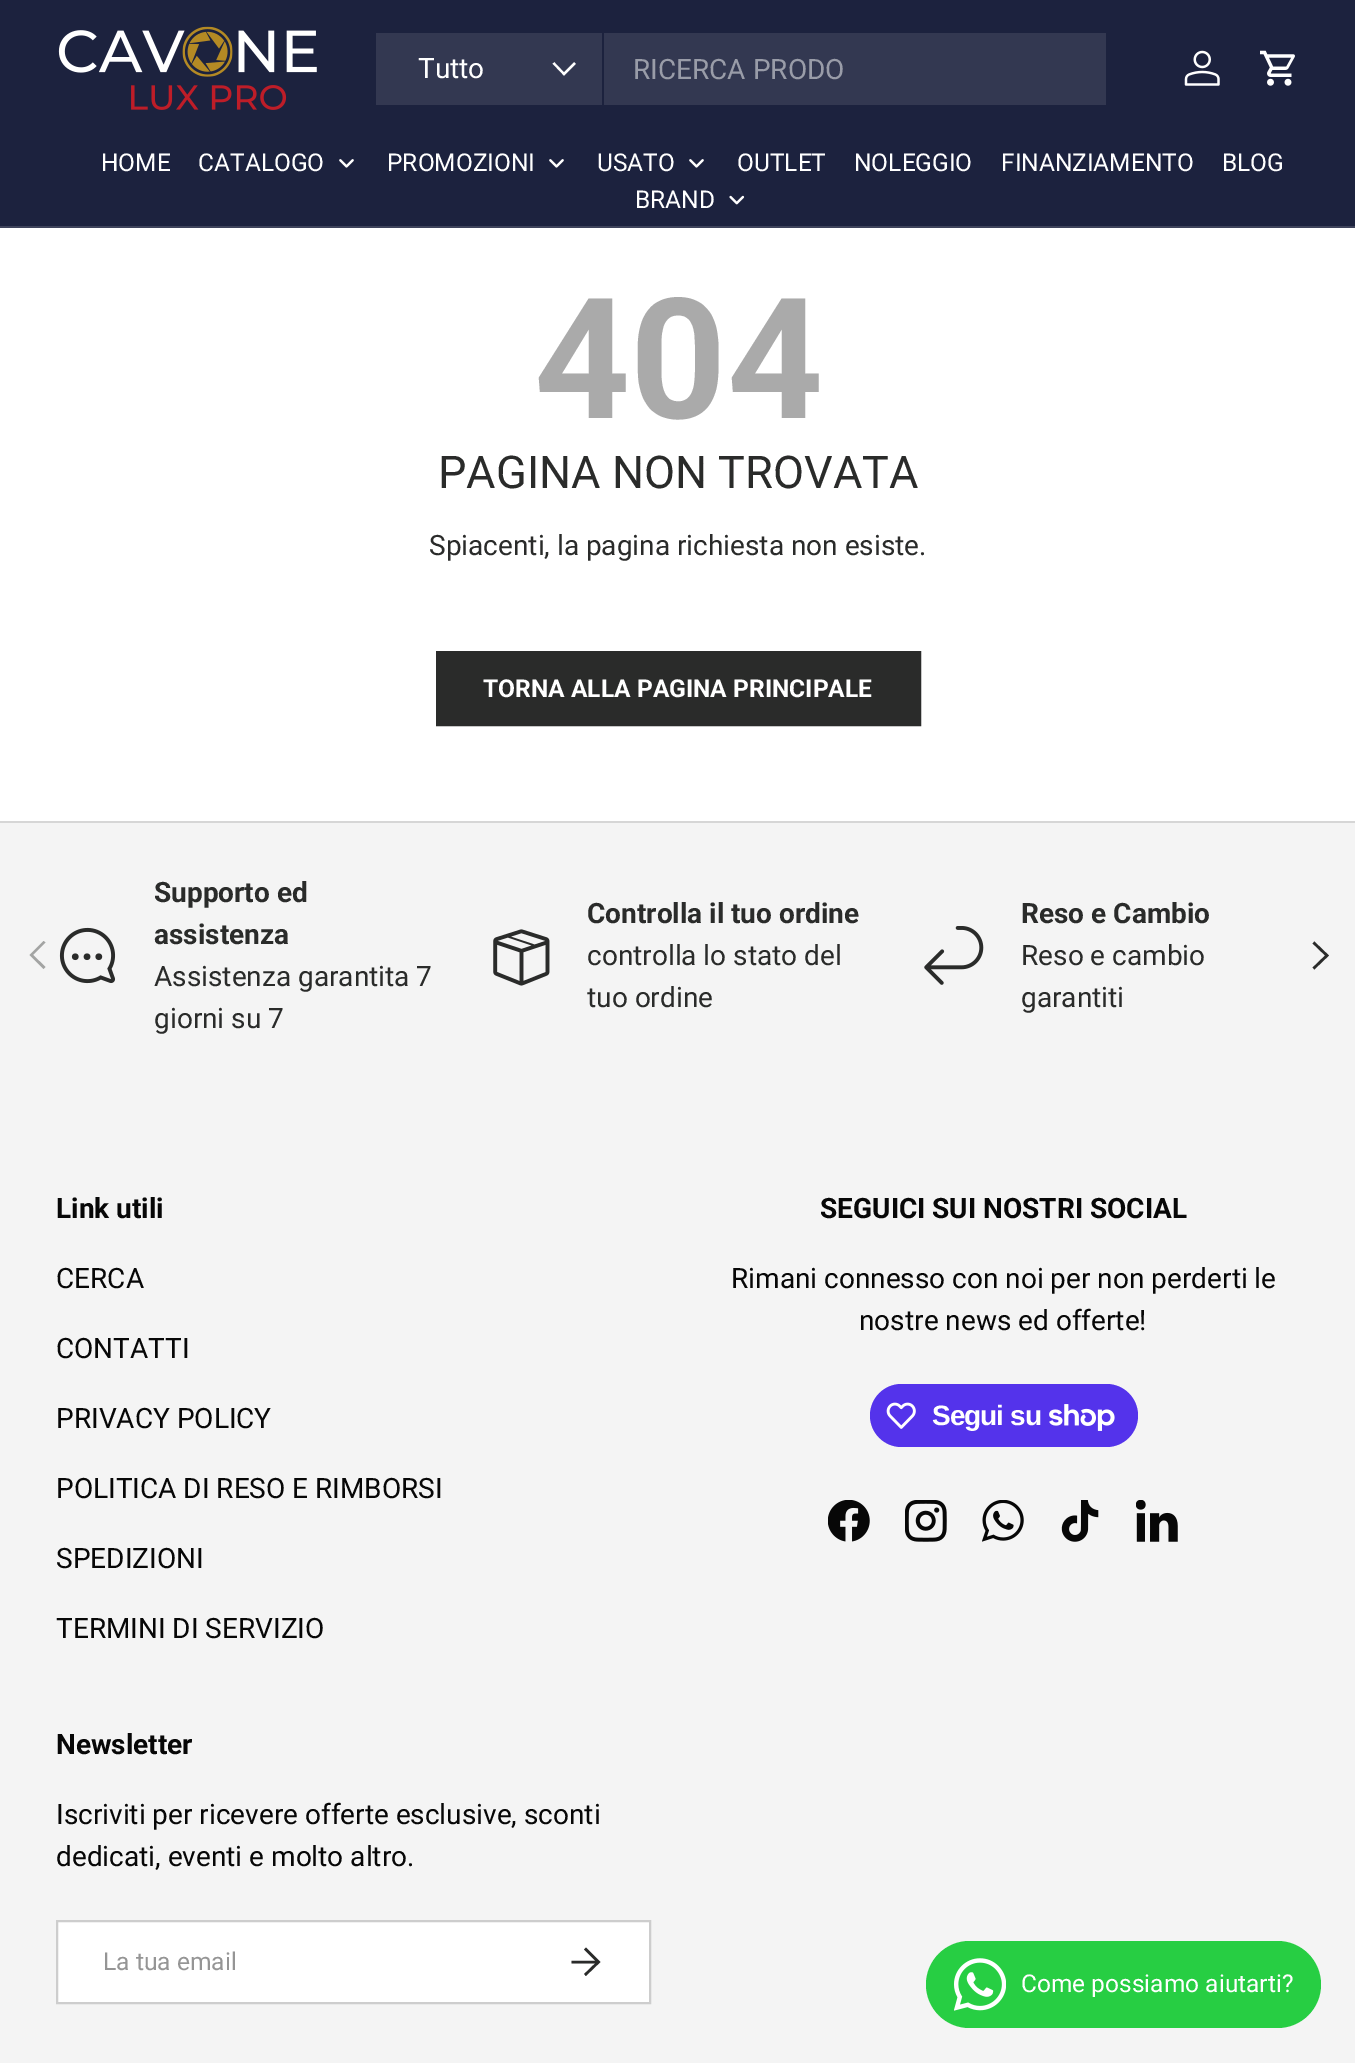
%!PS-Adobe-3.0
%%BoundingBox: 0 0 1355 2063
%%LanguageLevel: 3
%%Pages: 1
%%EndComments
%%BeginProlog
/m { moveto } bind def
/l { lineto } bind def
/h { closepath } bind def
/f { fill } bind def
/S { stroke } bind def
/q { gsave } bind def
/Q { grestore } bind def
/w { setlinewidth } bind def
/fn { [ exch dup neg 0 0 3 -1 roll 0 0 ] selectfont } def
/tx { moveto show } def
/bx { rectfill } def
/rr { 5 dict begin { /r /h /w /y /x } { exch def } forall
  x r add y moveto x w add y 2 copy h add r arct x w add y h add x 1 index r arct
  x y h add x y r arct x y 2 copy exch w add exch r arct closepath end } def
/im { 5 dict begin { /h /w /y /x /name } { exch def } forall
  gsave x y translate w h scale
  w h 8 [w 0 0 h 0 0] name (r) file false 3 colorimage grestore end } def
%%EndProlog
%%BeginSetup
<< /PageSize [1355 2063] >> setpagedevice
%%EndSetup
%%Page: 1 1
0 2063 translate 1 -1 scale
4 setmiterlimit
1 setgray
0 0 1355 2063 bx
0.11 0.133 0.243 setrgbcolor
0 0 1355 226 bx
0.243 0.263 0.357 setrgbcolor
0 226 1355 2 bx
(image0.raw) 58 26 259 84 im
0.2 0.22 0.318 setrgbcolor
376 33 730 72 bx
0.11 0.133 0.243 setrgbcolor
602 33 2 72 bx
/Roboto-Regular 28 fn
1 setgray
(Tutto) 418 78 tx
2.2 w
575 63 m 564 74 l 553.5 63 l S
0.6 0.612 0.659 setrgbcolor
(RICERCA PRODO) 633 79 tx
(image1.raw) 1184 50 36 36 im
(image2.raw) 1260 50 35 36 im
/Roboto-Regular 24.5 fn
1 setgray
(HOME) 101 171 tx
(CATALOGO) 198 171 tx
(image3.raw) 339 159 15 9 im
(PROMOZIONI) 387 171 tx
(image3.raw) 549 159 15 9 im
(USATO) 597 171 tx
(image3.raw) 689 159 15 9 im
(OUTLET) 737 171 tx
(NOLEGGIO) 854 171 tx
(FINANZIAMENTO) 1001 171 tx
(BLOG) 1222 171 tx
(BRAND) 635 208 tx
(image4.raw) 729 195 16 10 im
/Roboto-Bold 168 fn
0.667 setgray
(404) 534 418 tx
/Roboto-Regular 45.1 fn
0.165 0.169 0.165 setrgbcolor
(PAGINA NON TROVATA) 438 488 tx
/Roboto-Regular 28 fn
(Spiacenti, la pagina richiesta non esiste.) 429 555 tx
q 438 653 m 919 653 l 919 724 l 438 724 l h clip newpath
<< /ShadingType 2 /ColorSpace /DeviceRGB /Coords [-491 517 885 860] /Extend [true true] /Function << /FunctionType 3 /Domain [0 1] /Functions [<< /FunctionType 2 /Domain [0 1] /C0 [0.322 0.325 0.322] /C1 [0.322 0.325 0.322] /N 1 >> << /FunctionType 2 /Domain [0 1] /C0 [0.165 0.169 0.165] /C1 [0.165 0.169 0.165] /N 1 >>] /Bounds [0.6] /Encode [0 1 0 1] >> >> shfill Q
2 w
437 652 483 73 rectstroke
/Roboto-Bold 24.6 fn
1 setgray
(TORNA ALLA PAGINA PRINCIPALE) 483 697 tx
0.957 setgray
0 823 1355 1240 bx
0.839 setgray
0 821 1355 2 bx
(image5.raw) 59 927 57 57 im
/Roboto-Bold 28 fn
0.165 0.169 0.165 setrgbcolor
(Supporto ed) 154 902 tx
(assistenza) 154 944 tx
/Roboto-Regular 28 fn
(Assistenza garantita 7) 154 986 tx
(giorni su 7) 154 1028 tx
(image6.raw) 493 929 57 57 im
/Roboto-Bold 28 fn
(Controlla il tuo ordine) 587 923 tx
/Roboto-Regular 28 fn
(controlla lo stato del) 587 965 tx
(tuo ordine) 587 1007 tx
(image7.raw) 924 926 60 59 im
/Roboto-Bold 28 fn
(Reso e Cambio) 1021 923 tx
/Roboto-Regular 28 fn
(Reso e cambio) 1021 965 tx
(garantiti) 1021 1007 tx
0.639 0.643 0.639 setrgbcolor
29.5 955 m 43.5 941 l 45.5 942.5 l 33 955 l 45.5 967 l 43.5 969 l h f
0.165 0.169 0.165 setrgbcolor
2.6 w
1313.5 942.5 m 1327 955.5 l 1313.5 968.5 l S
/Roboto-Bold 28 fn
0.027 setgray
(Link utili) 56 1218 tx
/Roboto-Regular 28 fn
(CERCA) 56 1288 tx
(CONTATTI) 56 1358 tx
(PRIVACY POLICY) 56 1428 tx
(POLITICA DI RESO E RIMBORSI) 56 1498 tx
(SPEDIZIONI) 56 1568 tx
(TERMINI DI SERVIZIO) 56 1638 tx
/Roboto-Bold 28 fn
(SEGUICI SUI NOSTRI SOCIAL) 820 1218 tx
/Roboto-Regular 28 fn
(Rimani connesso con noi per non perderti le) 731 1288 tx
(nostre news ed offerte!) 859 1330 tx
0.329 0.2 0.922 setrgbcolor
870 1384 268 63 31.5 rr f
(image8.raw) 886 1402 30 27 im
/LiberationSans-Bold 28 fn
1 setgray
932 1425 m -1 0 (Segui su) ashow
(image9.raw) 1049 1404 66 27 im
(image10.raw) 828 1500 42 42 im
(image11.raw) 905 1500 42 42 im
(image12.raw) 982 1500 42 42 im
(image13.raw) 1061 1500 38 42 im
(image14.raw) 1136 1500 42 42 im
/Roboto-Bold 28 fn
0.027 setgray
(Newsletter) 56 1754 tx
/Roboto-Regular 28 fn
(Iscriviti per ricevere offerte esclusive, sconti) 56 1824 tx
(dedicati, eventi e molto altro.) 56 1866 tx
1 setgray
57 1921 m 650 1921 l 650 2003 l 57 2003 l h q f Q
0.804 setgray
2 w
S
/Roboto-Regular 24.6 fn
0.584 setgray
(La tua email) 103 1970 tx
0.165 0.169 0.165 setrgbcolor
2.6 w
571.5 1962 m 597.5 1962 l 585 1948.5 m 598.5 1962 l 585 1975 l S
0.153 0.808 0.263 setrgbcolor
926 1941 395 87 43.5 rr f
(image15.raw) 954 1958 52 53 im
/Roboto-Regular 24.5 fn
1 setgray
(Come possiamo aiutarti?) 1021 1992 tx
showpage
%%EOF
